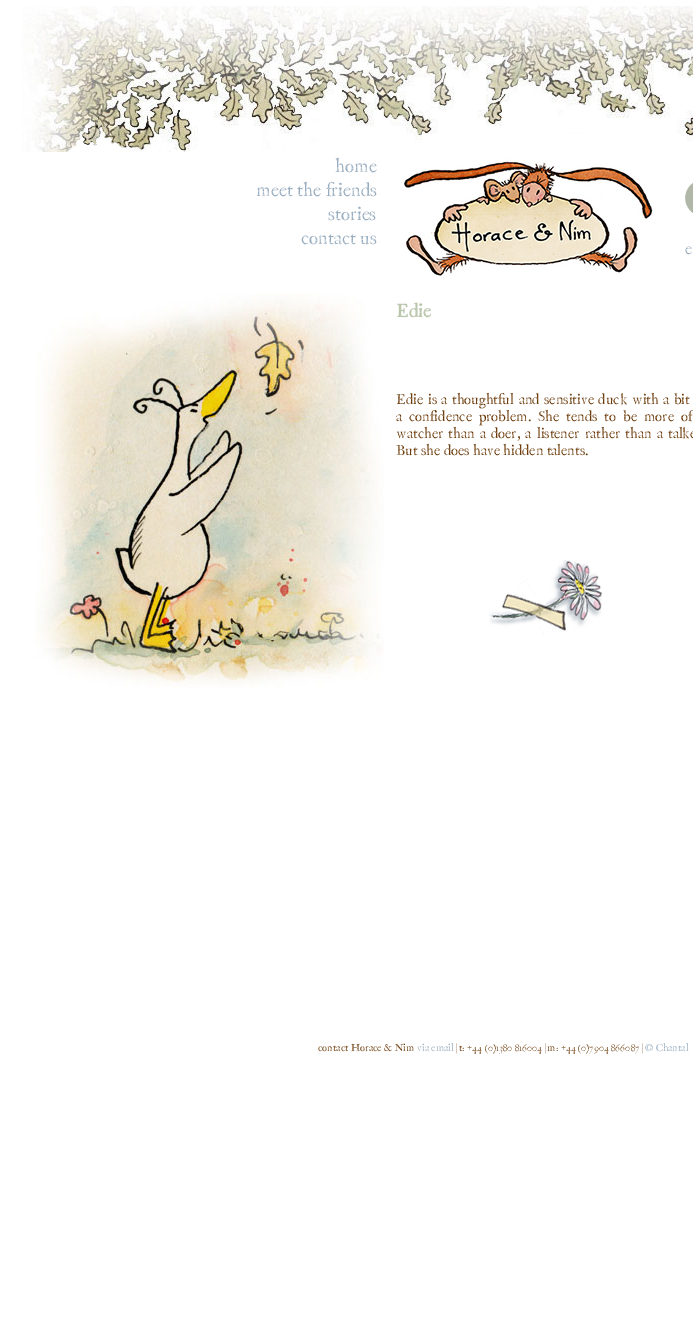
%!PS-Adobe-3.0
%%BoundingBox: 0 0 693 1338
%%LanguageLevel: 3
%%Pages: 1
%%EndComments
%%BeginProlog
/m { moveto } bind def
/fn { [ exch dup neg 0 0 3 -1 roll 0 0 ] selectfont } def
/tx { moveto show } def
/bx { rectfill } def
/im { 5 dict begin { /h /w /y /x /name } { exch def } forall
  gsave x y translate w h scale
  w h 8 [w 0 0 h 0 0] name (r) file false 3 colorimage grestore end } def
%%EndProlog
%%BeginSetup
<< /PageSize [693 1338] >> setpagedevice
%%EndSetup
%%Page: 1 1
0 1338 translate 1 -1 scale
4 setmiterlimit
1 setgray
0 0 693 1338 bx
(image0.raw) 22 6 671 146 im
/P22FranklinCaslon-Regular 18 fn
0.588 0.671 0.745 setrgbcolor
(home) 335 172 tx
(meet the friends) 256 196 tx
(stories) 328 220 tx
(contact us) 301 244 tx
(image1.raw) 404 156 249 120 im
(image2.raw) 685 183 8 30 im
/P22FranklinCaslon-Regular 16 fn
(e) 685 254 tx
(image3.raw) 35 293 349 395 im
/P22FranklinCaslon-Bold 18 fn
0.729 0.78 0.678 setrgbcolor
(Edie) 396 317 tx
/P22FranklinCaslon-Regular 14 fn
0.4 0.2 0 setrgbcolor
396 404 m 1 0 32 (Edie is a thoughtful and sensitive duck with a bit) widthshow
396 421 m 3.5 0 32 (a confidence problem. She tends to be more of) widthshow
396 438 m 1.75 0 32 (watcher than a doer, a listener rather than a talke) widthshow
(But she does have hidden talents.) 396 455 tx
(image4.raw) 489 560 113 74 im
/P22FranklinCaslon-Regular 10 fn
(contact Horace & Nim) 318 1051 tx
0.588 0.671 0.745 setrgbcolor
(via email) 417 1051 tx
0.4 0.2 0 setrgbcolor
(| t: +44 \(0\)1380 816004 | m: +44 \(0\)7904 866087 |) 456 1051 tx
0.588 0.671 0.745 setrgbcolor
(© Chantal) 645 1051 tx
showpage
%%EOF
